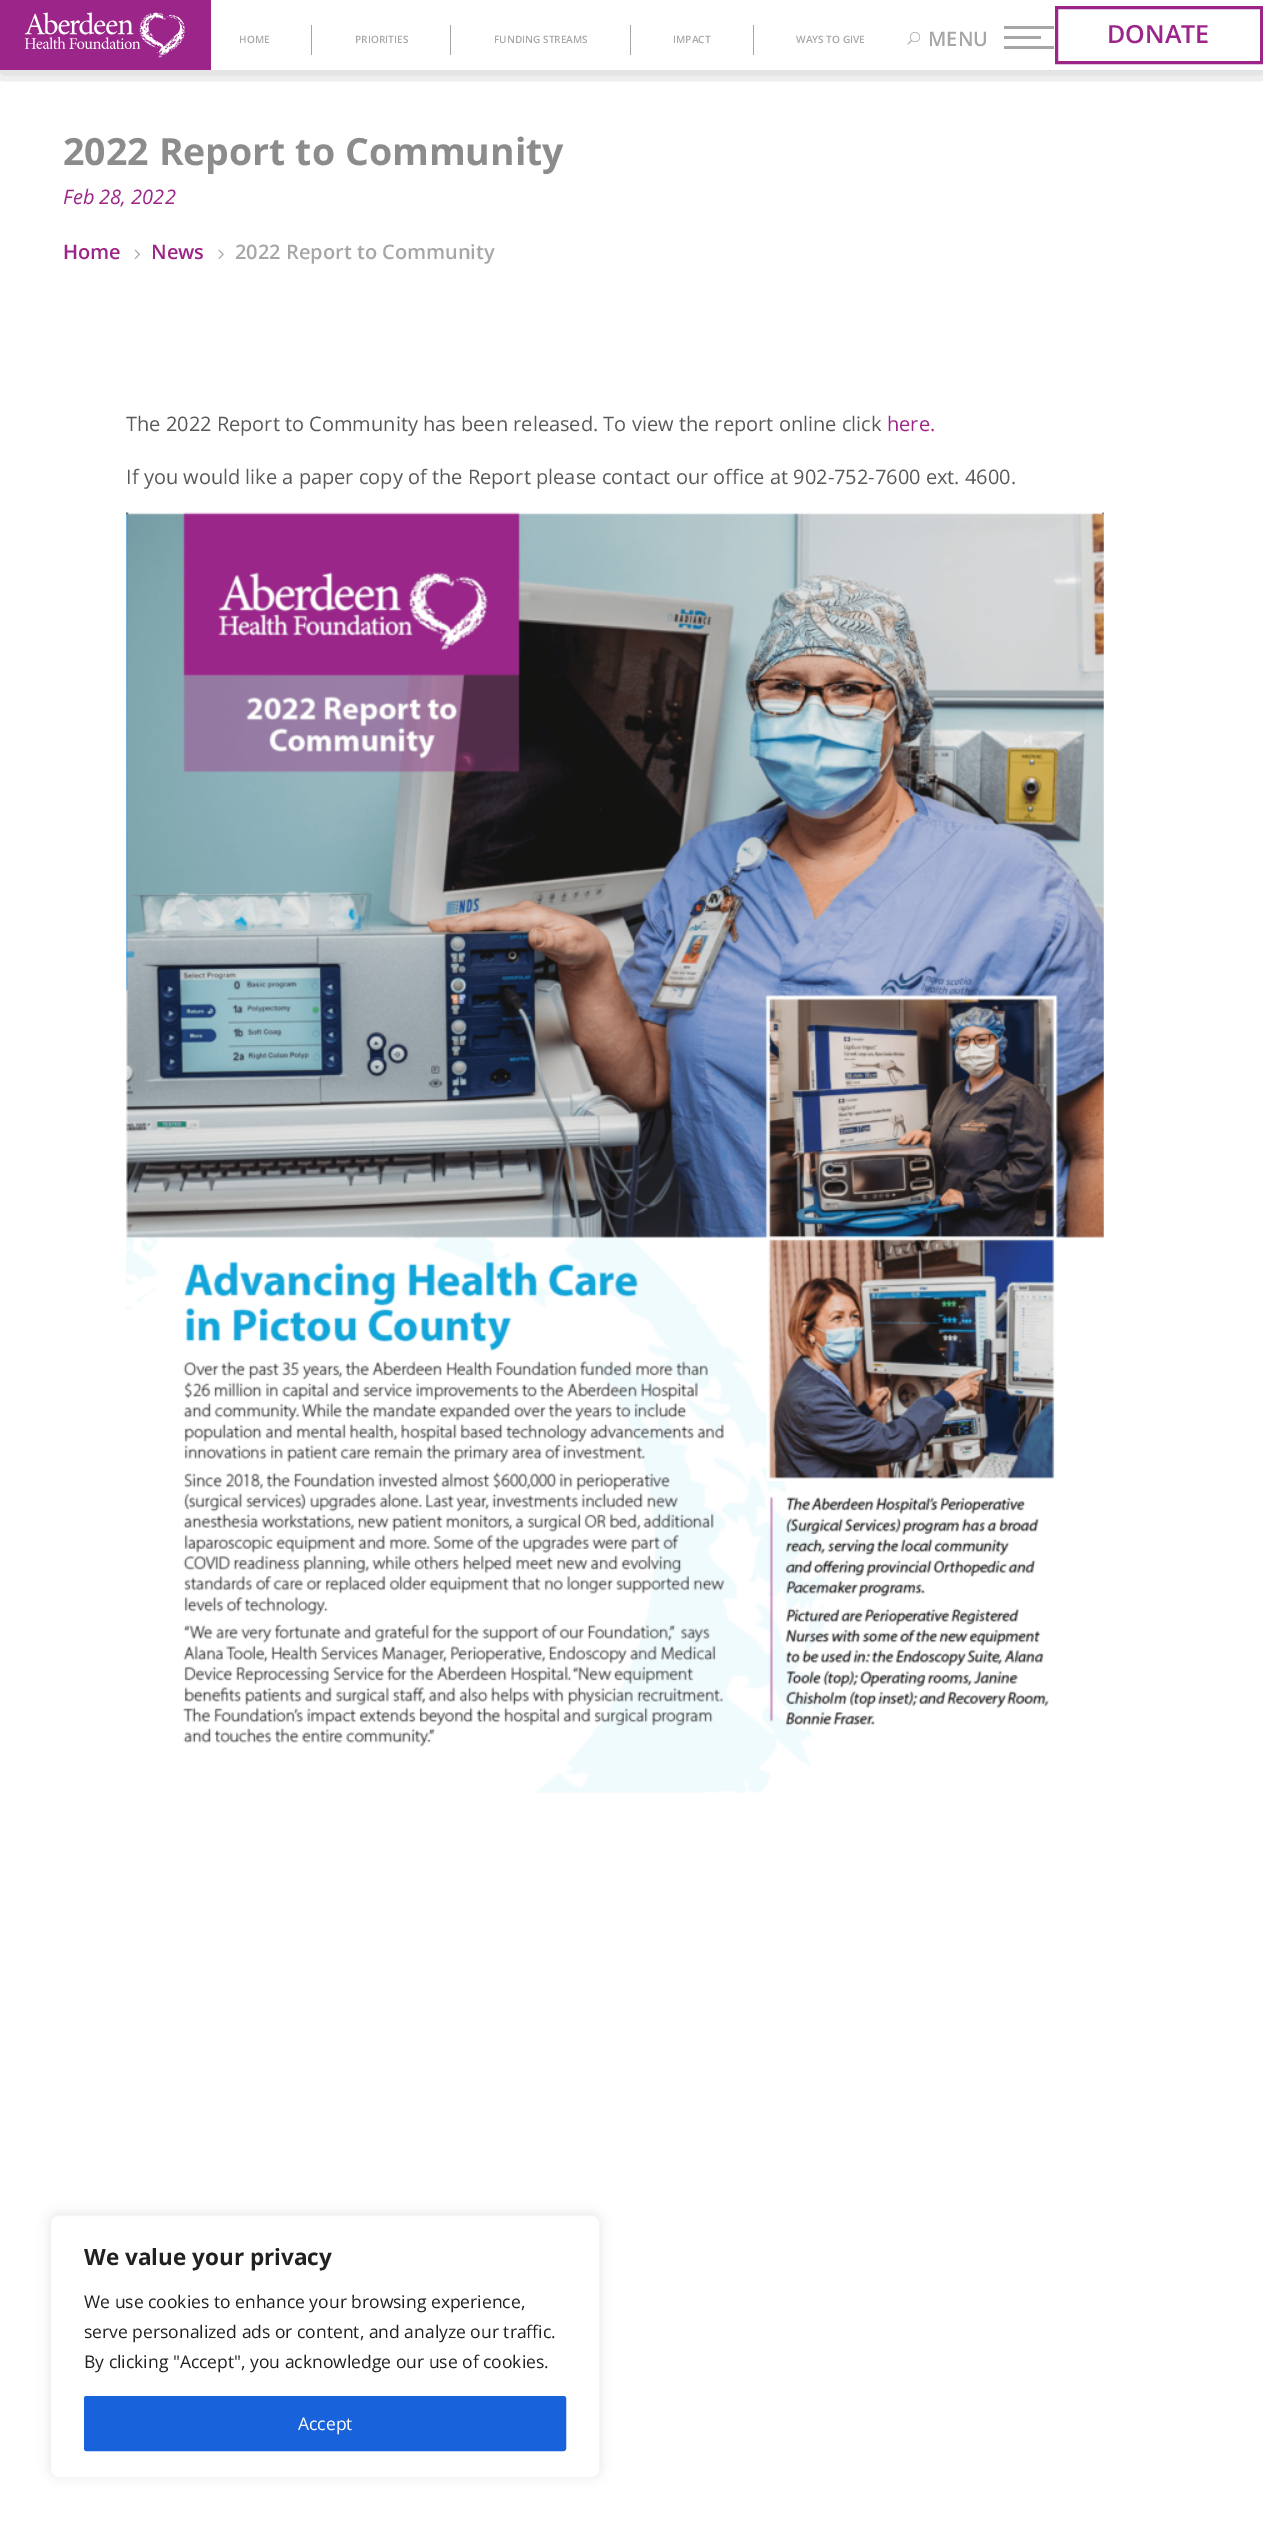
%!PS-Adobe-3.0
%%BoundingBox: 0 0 1263 2527
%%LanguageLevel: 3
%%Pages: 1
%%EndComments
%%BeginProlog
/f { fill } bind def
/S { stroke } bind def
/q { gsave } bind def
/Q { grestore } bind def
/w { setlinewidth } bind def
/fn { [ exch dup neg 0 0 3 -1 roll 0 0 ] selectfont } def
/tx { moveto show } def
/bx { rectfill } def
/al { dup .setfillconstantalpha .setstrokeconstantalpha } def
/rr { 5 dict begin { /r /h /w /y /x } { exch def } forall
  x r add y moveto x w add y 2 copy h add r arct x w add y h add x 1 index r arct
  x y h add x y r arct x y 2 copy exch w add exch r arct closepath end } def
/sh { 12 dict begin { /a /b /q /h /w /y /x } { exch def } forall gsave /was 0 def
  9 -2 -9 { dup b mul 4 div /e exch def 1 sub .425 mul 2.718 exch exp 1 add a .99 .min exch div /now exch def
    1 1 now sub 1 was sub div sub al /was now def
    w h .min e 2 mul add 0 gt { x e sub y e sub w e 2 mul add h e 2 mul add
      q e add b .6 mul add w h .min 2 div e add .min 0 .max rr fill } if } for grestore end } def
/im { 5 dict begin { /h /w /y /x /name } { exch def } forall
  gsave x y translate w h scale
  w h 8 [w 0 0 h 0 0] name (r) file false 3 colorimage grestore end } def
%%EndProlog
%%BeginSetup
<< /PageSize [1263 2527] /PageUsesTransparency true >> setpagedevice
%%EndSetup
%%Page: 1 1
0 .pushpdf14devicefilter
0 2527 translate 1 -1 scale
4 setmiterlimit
1 setgray
0 0 1263 2527 bx
q
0 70 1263 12 rectclip
0 setgray
0 3 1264 70 0 11 0.1 sh
0 3 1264 70 0 11 0.1 sh
Q
0.608 0.145 0.537 setrgbcolor
0 0 211 70 bx
(image0.raw) 24 12 161 46 im
0.651 setgray
311 25 1 30 bx
/OpenSans-SemiBold 10.1 fn
(HOME) 239 43 tx
450 25 1 30 bx
(PRIORITIES) 355 43 tx
630 25 1 30 bx
(FUNDING STREAMS) 494 43 tx
753 25 1 30 bx
(IMPACT) 673 43 tx
(WAYS TO GIVE) 796 43 tx
(image1.raw) 907 31 14 14 im
/OpenSans-SemiBold 20 fn
(MENU) 928 46 tx
1004 26 50 3 bx
1004 36 37 3 bx
1004 46 50 3 bx
0.608 0.145 0.537 setrgbcolor
3 w
1056.5 7.5 205 55 rectstroke
/OpenSans-SemiBold 25 fn
(DONATE) 1107 43 tx
/OpenSans-Bold 37.5 fn
0.549 setgray
(2022 Report to Community) 63 165 tx
/OpenSans-Italic 20 fn
0.608 0.145 0.537 setrgbcolor
(Feb 28, 2022) 63 204 tx
/OpenSans-SemiBold 20 fn
(Home) 63 259 tx
(image2.raw) 134 249 6 10 im
(News) 151 259 tx
(image3.raw) 218 249 6 10 im
0.651 setgray
(2022 Report to Community) 235 259 tx
/OpenSans-Regular 20 fn
0.349 setgray
(The 2022 Report to Community has been released. To view the report online click) 126 431 tx
0.608 0.145 0.537 setrgbcolor
(here.) 887 431 tx
0.349 setgray
(If you would like a paper copy of the Report please contact our office at 902-752-7600 ext. 4600.) 126 484 tx
(image4.raw) 126 512 978 1281 im
0.675 0.671 0.671 setrgbcolor
50 2214 550 262 8 6 0.3 sh
1 setgray
50.5 2215.5 549 262 7.5 rr q f Q
0.957 setgray
1 w
S
/OpenSans-Bold 22.5 fn
0.129 setgray
(We value your privacy) 84 2265 tx
/OpenSans-Regular 17.5 fn
(We use cookies to enhance your browsing experience,) 84 2308 tx
(serve personalized ads or content, and analyze our traffic.) 84 2338 tx
(By clicking "Accept", you acknowledge our use of cookies.) 84 2368 tx
0.094 0.388 0.863 setrgbcolor
85.5 2397.5 479 52 1 rr q f Q
3 w
S
1 setgray
(Accept) 298 2430 tx
.poppdf14devicefilter showpage
%%EOF
